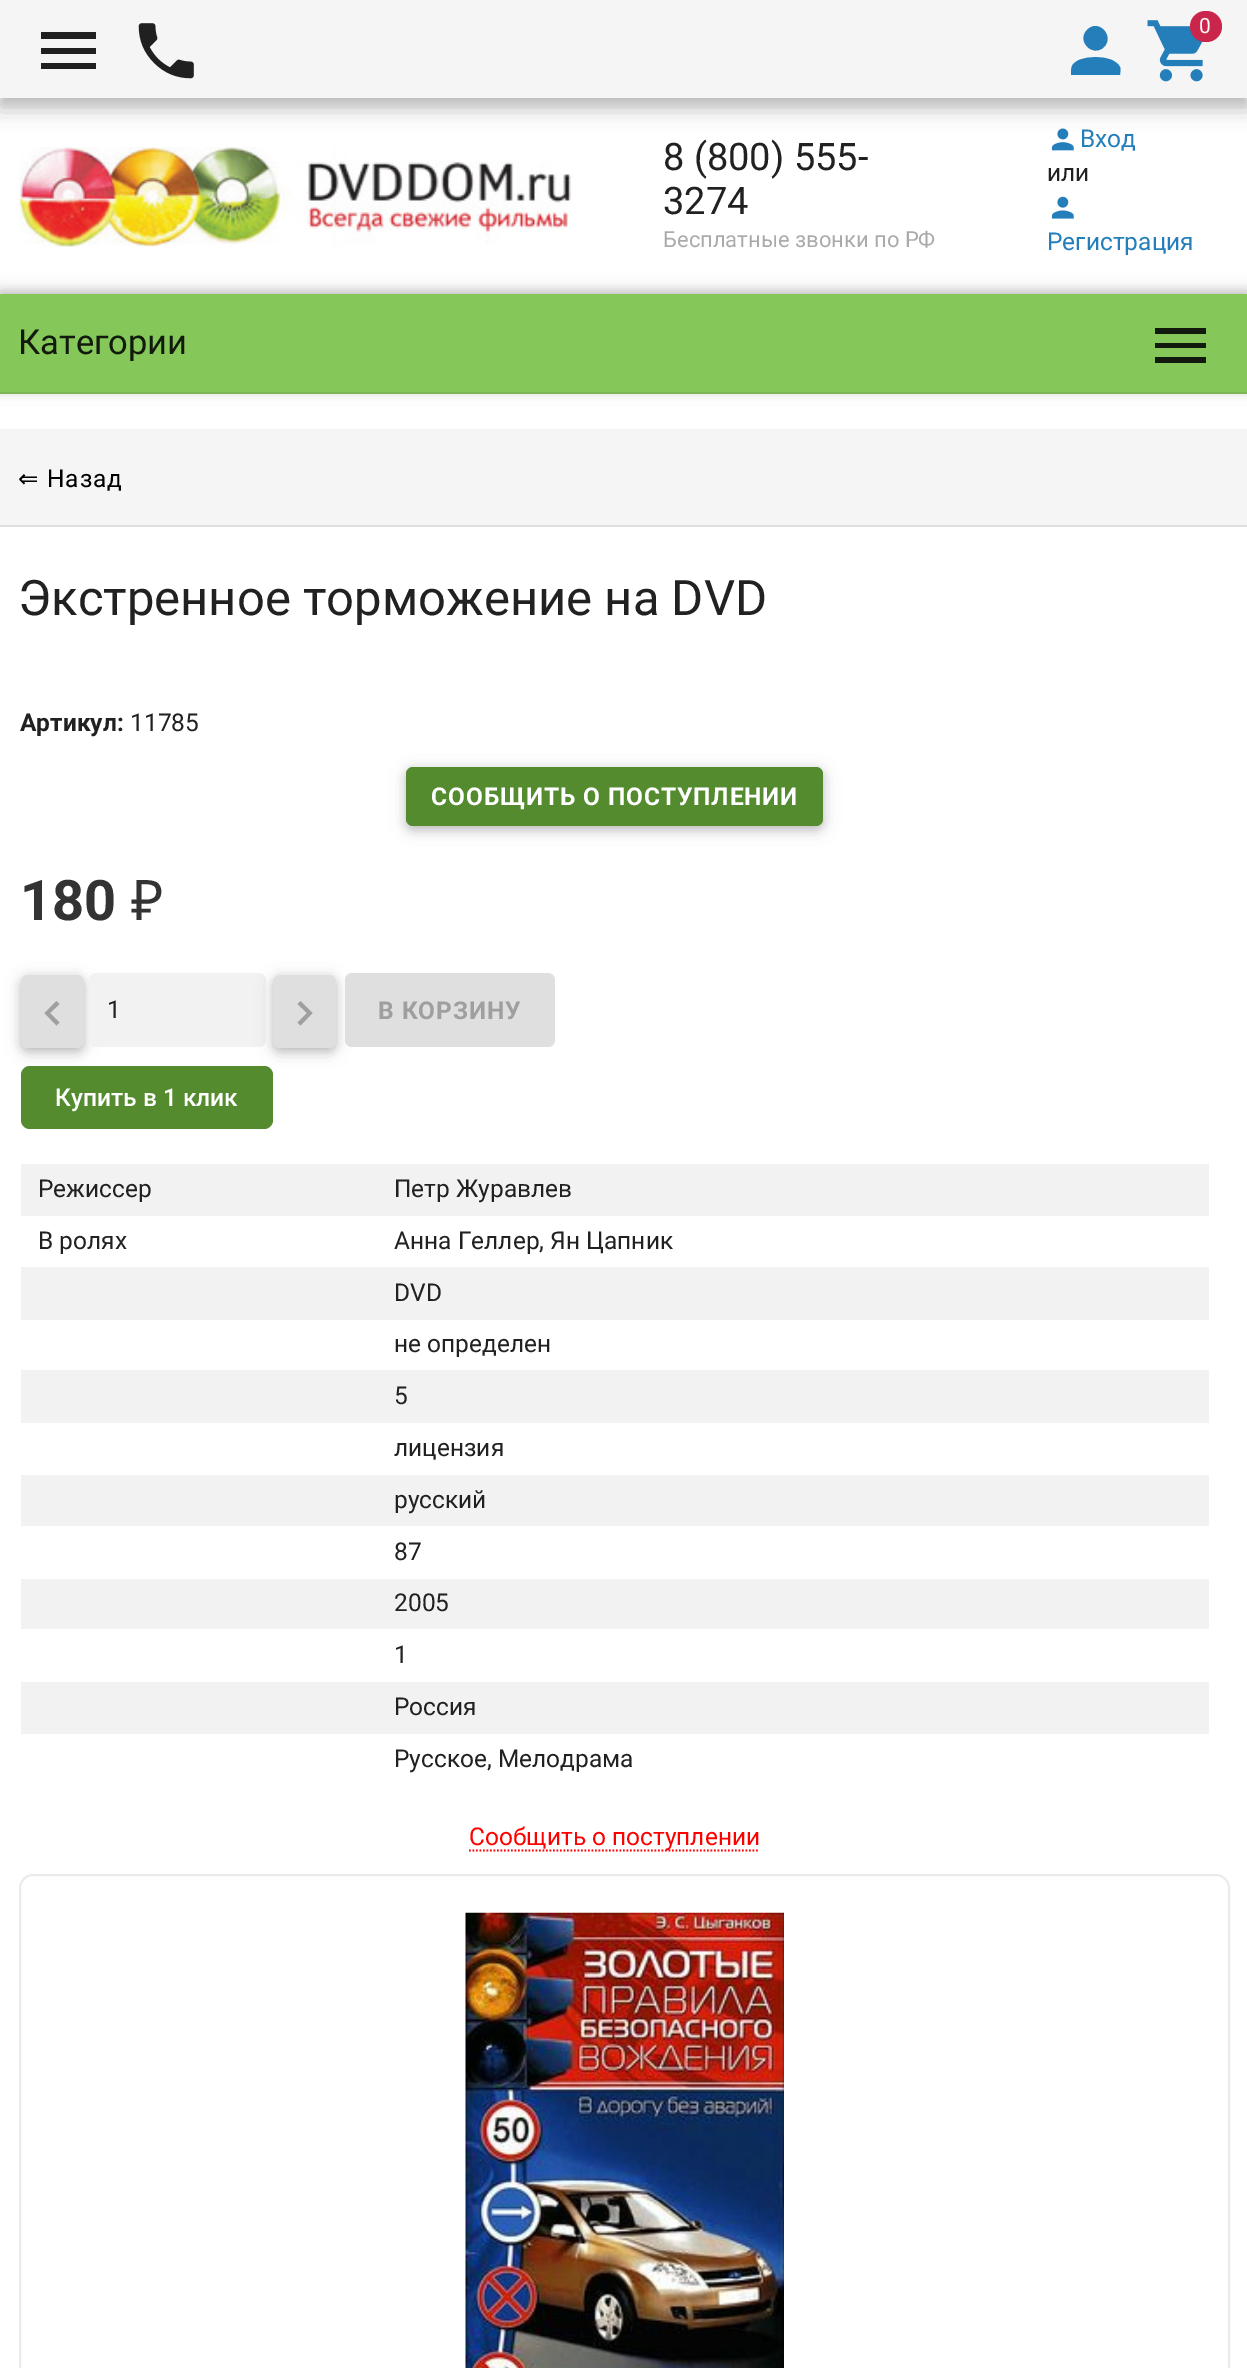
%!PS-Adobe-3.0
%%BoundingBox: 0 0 1247 2368
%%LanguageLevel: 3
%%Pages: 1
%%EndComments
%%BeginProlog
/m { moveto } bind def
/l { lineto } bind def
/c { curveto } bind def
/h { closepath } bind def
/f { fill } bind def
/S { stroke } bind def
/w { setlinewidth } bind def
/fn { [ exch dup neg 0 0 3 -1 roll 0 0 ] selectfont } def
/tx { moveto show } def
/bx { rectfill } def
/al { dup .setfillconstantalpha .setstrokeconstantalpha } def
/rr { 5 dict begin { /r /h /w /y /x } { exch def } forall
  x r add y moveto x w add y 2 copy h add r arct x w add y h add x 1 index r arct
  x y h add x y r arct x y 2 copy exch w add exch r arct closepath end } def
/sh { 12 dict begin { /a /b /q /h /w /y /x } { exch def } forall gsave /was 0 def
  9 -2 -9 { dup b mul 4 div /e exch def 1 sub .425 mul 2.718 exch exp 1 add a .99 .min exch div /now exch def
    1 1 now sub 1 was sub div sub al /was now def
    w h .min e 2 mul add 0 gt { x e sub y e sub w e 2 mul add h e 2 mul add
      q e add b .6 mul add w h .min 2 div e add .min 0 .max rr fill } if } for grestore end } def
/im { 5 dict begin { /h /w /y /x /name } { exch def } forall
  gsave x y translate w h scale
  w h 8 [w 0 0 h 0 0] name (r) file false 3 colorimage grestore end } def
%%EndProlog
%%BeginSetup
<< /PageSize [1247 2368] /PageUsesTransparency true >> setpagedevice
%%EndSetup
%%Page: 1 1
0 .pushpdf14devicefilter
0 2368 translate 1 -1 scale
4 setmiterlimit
1 setgray
0 0 1247 2368 bx
(image3.raw) 1051 128 23 23 im
0 setgray
0 7 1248 98 0 13 0.15 sh
0 9 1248 98 0 9.5 0.18 sh
0.961 setgray
0 0 1247 98 bx
0.125 setgray
41 32 m 96 32 l 96 39 l 41 39 l h 41 54 m 41 48 l 96 48 l 96 54 l h 41 69 m 41 63 l 96 63 l 96 69 l h f
(image0.raw) 138 23 56 56 im
0.137 0.494 0.725 setrgbcolor
1079 60 m 1090 56 1101 56 1112 60 c 1115 62 1118 63 1120 67 c 1121 69 1120 73 1120 75 c 1071 75 l 1071 67 1071 64 1079 60 c h 1104 47 m 1093 58 1076 41 1087 30 c 1098 18 1115 36 1104 47 c h f
(image1.raw) 1147 20 56 62 im
0.792 0.149 0.294 setrgbcolor
1190 11 32 31 15.5 rr f
/Roboto-Regular 21 fn
1 setgray
(0) 1199 33 tx
(image2.raw) 19 147 553 100 im
/Roboto-Regular 38 fn
0.129 setgray
(8 \(800\) 555-) 663 170 tx
(3274) 663 214 tx
/Roboto-Regular 22 fn
0.667 setgray
(Бесплатные звонки по РФ) 663 247 tx
/Roboto-Regular 24.5 fn
0.137 0.494 0.725 setrgbcolor
(Вход) 1080 147 tx
0.129 setgray
(или) 1047 181 tx
(image4.raw) 1051 196 23 23 im
0.137 0.494 0.725 setrgbcolor
(Регистрация) 1047 250 tx
0 setgray
0 291 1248 99 0 9 0.12 sh
0 291 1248 99 0 4.5 0.16 sh
0.525 0.78 0.349 setrgbcolor
0 294 1247 98 bx
0.486 0.71 0.329 setrgbcolor
0 392 1247 2 bx
/Roboto-Regular 34.5 fn
0.067 0.102 0.047 setrgbcolor
(Категории) 18 354 tx
1155 328 m 1206 328 l 1206 334 l 1155 334 l h 1155 348 m 1155 343 l 1206 343 l 1206 348 l h 1155 363 m 1155 357 l 1206 357 l 1206 363 l h f
0.961 setgray
0 429 1247 96 bx
0.871 setgray
0 525 1247 2 bx
/DejaVuSans-Regular 24.5 fn
0 setgray
18 487 m 0.9 0 (⇐) ashow
/Roboto-Regular 24.5 fn
47 487 m 0.9 0 (Назад) ashow
/Roboto-Regular 49 fn
0.129 setgray
(Экстренное торможение на DVD) 18 615 tx
/Roboto-Bold 24.5 fn
(Артикул:) 20 731 tx
/Roboto-Regular 24.5 fn
(11785) 130 731 tx
0 setgray
406 770 417 60 7 9 0.12 sh
406 770 417 60 7 4.5 0.16 sh
0.333 0.545 0.184 setrgbcolor
406 767 417 59 7 rr f
/Roboto-Bold 24.5 fn
1 setgray
431 805 m 0.9 0 (СООБЩИТЬ О ПОСТУПЛЕНИИ) ashow
/Roboto-Bold 56 fn
0.2 setgray
(180) 20 920 tx
/NotoSans-Regular 56 fn
(₽) 131 920 tx
0 setgray
21 978 63 74 7 9 0.12 sh
21 978 63 74 7 4.5 0.16 sh
0.875 setgray
21 975 63 73 7 rr f
0.624 setgray
59.5 1004 m 50 1013 l 59.5 1022.5 l 56.5 1025.5 l 44.5 1013 l 56.5 1001 l h f
0.949 setgray
89 973 177 74 7 rr f
/Roboto-Regular 24.5 fn
0.129 setgray
(1) 107 1018 tx
0 setgray
273 978 63 74 7 9 0.12 sh
273 978 63 74 7 4.5 0.16 sh
0.875 setgray
273 975 63 73 7 rr f
0.624 setgray
300.5 1001 m 312.5 1013 l 300.5 1025.5 l 297.5 1022.5 l 307 1013 l 297.5 1004 l h f
0.875 setgray
345 973 210 74 7 rr f
/Roboto-Bold 24.5 fn
0.624 setgray
378 1019 m 0.9 0 (В КОРЗИНУ) ashow
0.333 0.545 0.184 setrgbcolor
21 1066 252 63 9 rr f
/Roboto-Medium 24.5 fn
1 setgray
(Купить в 1 клик) 55 1106 tx
0.949 setgray
21 1164 1188 52 bx
/Roboto-Regular 24.5 fn
0.129 setgray
(Режиссер) 38 1197 tx
(Петр Журавлев) 394 1197 tx
(В ролях) 38 1249 tx
(Анна Геллер, Ян Цапник) 394 1249 tx
0.949 setgray
21 1267 1188 53 bx
0.129 setgray
(DVD) 394 1301 tx
(не определен) 394 1352 tx
0.949 setgray
21 1370 1188 53 bx
0.129 setgray
(5) 394 1404 tx
(лицензия) 394 1456 tx
0.949 setgray
21 1475 1188 51 bx
0.129 setgray
(русский) 394 1508 tx
(87) 394 1560 tx
0.949 setgray
21 1579 1188 50 bx
0.129 setgray
(2005) 394 1611 tx
(1) 394 1663 tx
0.949 setgray
21 1682 1188 52 bx
0.129 setgray
(Россия) 394 1715 tx
(Русское, Мелодрама) 394 1767 tx
1 0 0 setrgbcolor
1.8 w
[1.75 1.75] 0 setdash
469 1850.5 m 759.5 1850.5 l S
(Сообщить о поступлении) 469 1845 tx
0.922 setgray
2 w
[] 0 setdash
20 1875 1209 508 13 rr S
(image5.raw) 465 1912 319 456 im
.poppdf14devicefilter showpage
%%EOF
